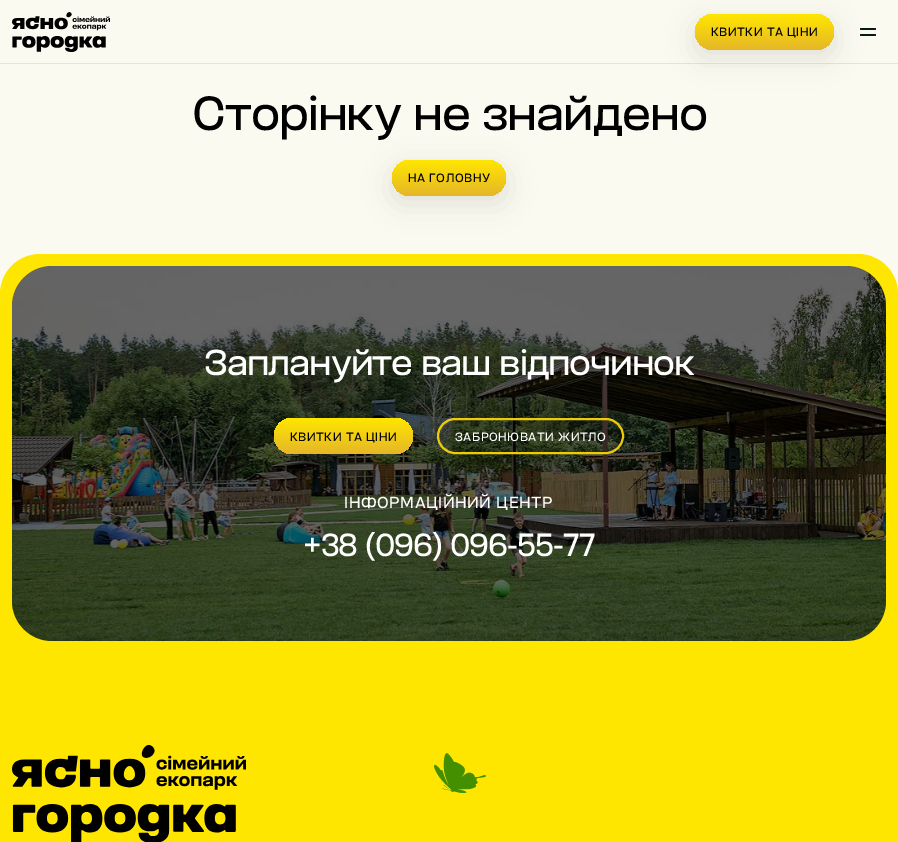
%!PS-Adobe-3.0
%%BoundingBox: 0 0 898 842
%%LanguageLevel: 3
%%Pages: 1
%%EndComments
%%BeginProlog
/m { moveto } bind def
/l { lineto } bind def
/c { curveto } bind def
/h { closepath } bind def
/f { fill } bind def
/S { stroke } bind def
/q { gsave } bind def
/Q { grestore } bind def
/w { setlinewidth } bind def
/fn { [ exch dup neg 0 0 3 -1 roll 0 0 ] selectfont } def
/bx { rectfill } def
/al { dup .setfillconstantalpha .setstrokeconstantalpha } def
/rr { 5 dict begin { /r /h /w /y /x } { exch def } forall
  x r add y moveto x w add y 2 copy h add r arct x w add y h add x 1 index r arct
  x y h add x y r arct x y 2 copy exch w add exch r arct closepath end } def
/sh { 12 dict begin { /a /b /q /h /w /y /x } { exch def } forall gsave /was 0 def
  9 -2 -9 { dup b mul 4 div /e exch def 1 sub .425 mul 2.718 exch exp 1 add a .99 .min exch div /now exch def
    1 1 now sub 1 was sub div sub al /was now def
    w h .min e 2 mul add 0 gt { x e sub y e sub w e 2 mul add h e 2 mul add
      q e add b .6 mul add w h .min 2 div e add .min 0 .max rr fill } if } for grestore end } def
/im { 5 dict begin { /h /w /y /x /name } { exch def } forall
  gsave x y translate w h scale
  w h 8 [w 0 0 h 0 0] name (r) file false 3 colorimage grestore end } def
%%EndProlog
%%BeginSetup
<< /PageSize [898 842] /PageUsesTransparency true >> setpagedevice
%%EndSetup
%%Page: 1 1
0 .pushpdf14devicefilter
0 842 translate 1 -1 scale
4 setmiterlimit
0.984 0.98 0.945 setrgbcolor
0 0 898 842 bx
(image0.raw) 12 12 98 40 im
0.89 setgray
0 63 898 1 bx
0 setgray
695 22 139 36 18 14 0.1 sh
q 695 14 139 36 18 rr clip newpath
<< /ShadingType 2 /ColorSpace /DeviceRGB /Coords [765 14 765 50] /Extend [true true] /Function << /FunctionType 2 /Domain [0 1] /C0 [1 0.902 0] /C1 [0.898 0.714 0.161] /N 1 >> >> shfill Q
/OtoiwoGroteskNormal-Medium 12 fn
711 36 m 0.5 0 (КВИТКИ ТА ЦІНИ) ashow
0.02 0.094 0.102 setrgbcolor
860 28 16 2 1 rr f
860 34 16 2 1 rr f
/OtoiwoGroteskNormal-Medium 48 fn
0 setgray
192 130 m -1 0 (Сторінку не знайдено) ashow
392 168 114 36 18 14 0.1 sh
q 392 160 114 36 18 rr clip newpath
<< /ShadingType 2 /ColorSpace /DeviceRGB /Coords [449 160 449 196] /Extend [true true] /Function << /FunctionType 2 /Domain [0 1] /C0 [1 0.902 0] /C1 [0.898 0.714 0.161] /N 1 >> >> shfill Q
/OtoiwoGroteskNormal-Medium 12 fn
408 182 m 0.5 0 (НА ГОЛОВНУ) ashow
1 0.902 0 setrgbcolor
40 254 m 858 254 l 880 254 898 272 898 294 c 898 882 l 0 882 l 0 294 l 0 272 18 254 40 254 c h f
(image1.raw) 12 266 874 375 im
0.6 al
0 setgray
12 266 874 375 40 rr f
/OtoiwoGroteskNormal-Medium 36 fn
1 al
1 setgray
204 375 m -1.05 0 (Заплануйте ваш відпочинок) ashow
q 274 418 139 36 18 rr clip newpath
<< /ShadingType 2 /ColorSpace /DeviceRGB /Coords [344 418 344 454] /Extend [true true] /Function << /FunctionType 2 /Domain [0 1] /C0 [1 0.902 0] /C1 [0.898 0.714 0.161] /N 1 >> >> shfill Q
/OtoiwoGroteskNormal-Medium 12 fn
0 setgray
290 441 m 0.5 0 (КВИТКИ ТА ЦІНИ) ashow
0.929 0.796 0.035 setrgbcolor
2 w
438 419 185 34 17 rr S
1 setgray
455 441 m 0.5 0 (ЗАБРОНЮВАТИ ЖИТЛО) ashow
/OtoiwoGroteskNormal-Medium 16 fn
344 508 m 0.6 0 (ІНФОРМАЦІЙНИЙ ЦЕНТР) ashow
/OtoiwoGroteskNormal-Medium 32 fn
303 556 m -1 0 (+38 \(096\) 096-55-77) ashow
(image2.raw) 12 745 234 97 im
(image3.raw) 434 753 52 40 im
.poppdf14devicefilter showpage
%%EOF
